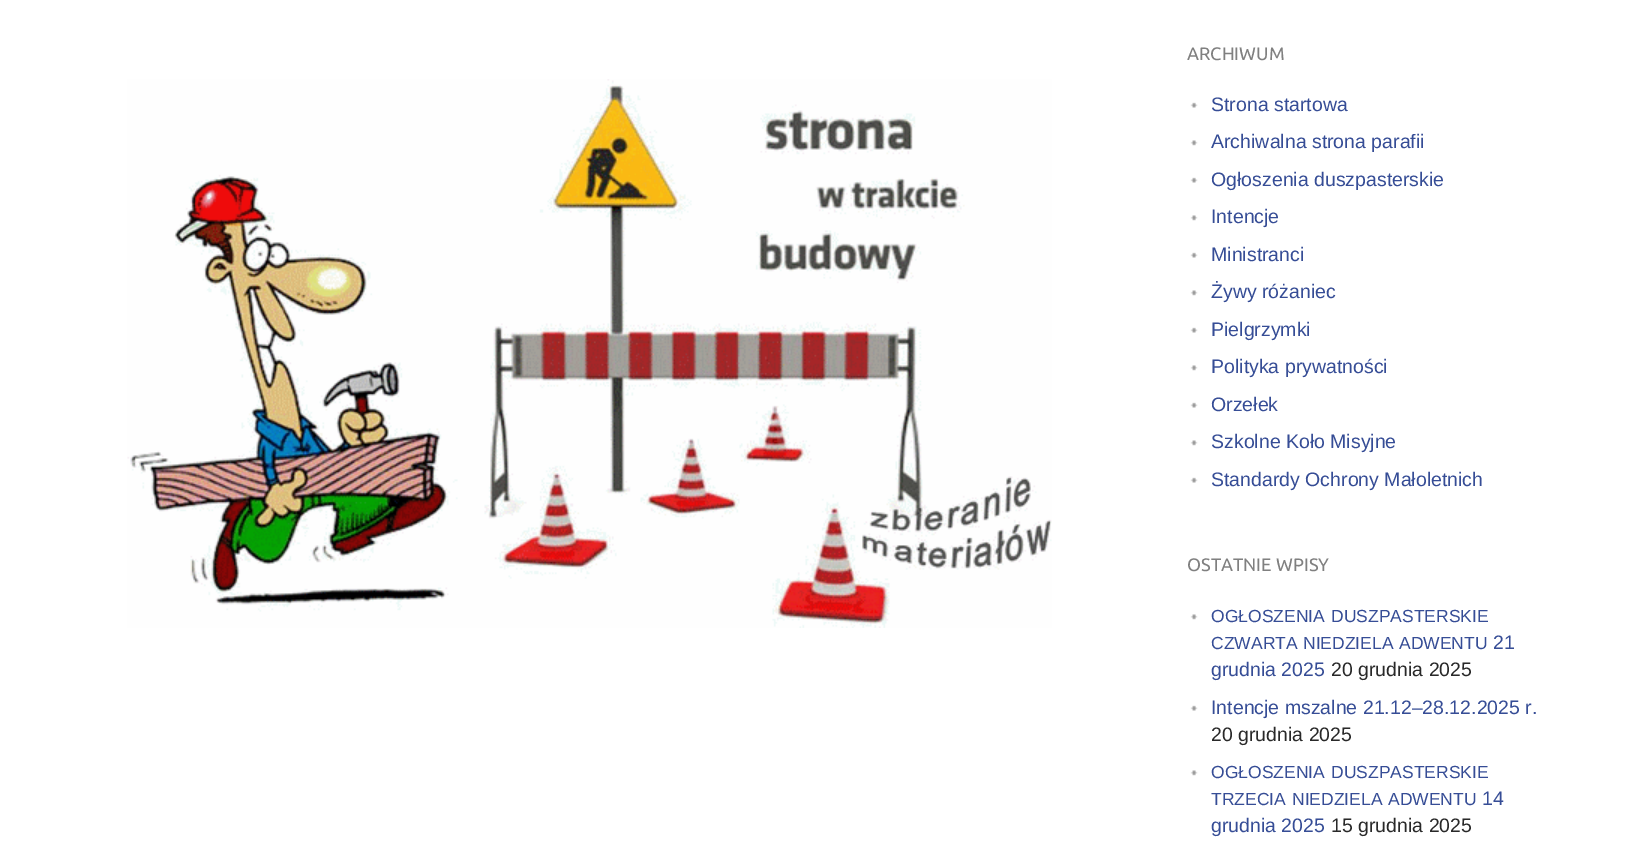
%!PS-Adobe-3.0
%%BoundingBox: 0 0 1633 857
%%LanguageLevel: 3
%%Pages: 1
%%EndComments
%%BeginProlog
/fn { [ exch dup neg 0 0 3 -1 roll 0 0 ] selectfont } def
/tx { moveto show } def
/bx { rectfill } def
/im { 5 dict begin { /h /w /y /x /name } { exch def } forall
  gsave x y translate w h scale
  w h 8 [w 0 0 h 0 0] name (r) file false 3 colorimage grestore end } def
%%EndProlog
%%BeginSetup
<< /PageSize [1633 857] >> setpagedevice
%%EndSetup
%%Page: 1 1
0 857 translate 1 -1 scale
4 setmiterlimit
1 setgray
0 0 1633 857 bx
(image0.raw) 127 79 925 549 im
/Ubuntu-Regular 18 fn
0.502 setgray
(ARCHIWUM) 1187 60 tx
(image1.raw) 1190 102 8 6 im
/LiberationSans-Regular 19.5 fn
0.212 0.302 0.588 setrgbcolor
(Strona startowa) 1211 111 tx
(image2.raw) 1190 140 8 6 im
(Archiwalna strona parafii) 1211 148 tx
(image1.raw) 1190 177 8 6 im
(Ogłoszenia duszpasterskie) 1211 186 tx
(image2.raw) 1190 215 8 6 im
(Intencje) 1211 223 tx
(image1.raw) 1190 252 8 6 im
(Ministranci) 1211 261 tx
(image2.raw) 1190 290 8 6 im
(Żywy różaniec) 1211 298 tx
(image1.raw) 1190 327 8 6 im
(Pielgrzymki) 1211 336 tx
(image2.raw) 1190 365 8 6 im
(Polityka prywatności) 1211 373 tx
(image1.raw) 1190 402 8 6 im
(Orzełek) 1211 411 tx
(image2.raw) 1190 440 8 6 im
(Szkolne Koło Misyjne) 1211 448 tx
(image1.raw) 1190 477 8 6 im
(Standardy Ochrony Małoletnich) 1211 486 tx
/Ubuntu-Regular 18 fn
0.502 setgray
(OSTATNIE WPISY) 1187 571 tx
(image2.raw) 1190 614 8 6 im
/LiberationSans-Regular 17.5 fn
0.212 0.302 0.588 setrgbcolor
(OGŁOSZENIA) 1211 622 tx
(DUSZPASTERSKIE) 1331 622 tx
(CZWARTA) 1211 649 tx
(NIEDZIELA) 1303 649 tx
(ADWENTU) 1399 649 tx
/LiberationSans-Regular 19.5 fn
(21) 1493 649 tx
(grudnia 2025) 1211 676 tx
0.161 setgray
(20 grudnia 2025) 1331 676 tx
(image1.raw) 1190 705 8 6 im
0.212 0.302 0.588 setrgbcolor
(Intencje mszalne 21.12–28.12.2025 r.) 1211 714 tx
0.161 setgray
(20 grudnia 2025) 1211 741 tx
(image2.raw) 1190 770 8 6 im
/LiberationSans-Regular 17.5 fn
0.212 0.302 0.588 setrgbcolor
(OGŁOSZENIA) 1211 778 tx
(DUSZPASTERSKIE) 1331 778 tx
(TRZECIA) 1211 805 tx
(NIEDZIELA) 1292 805 tx
(ADWENTU) 1388 805 tx
/LiberationSans-Regular 19.5 fn
(14) 1482 805 tx
(grudnia 2025) 1211 832 tx
0.161 setgray
(15 grudnia 2025) 1331 832 tx
showpage
%%EOF
